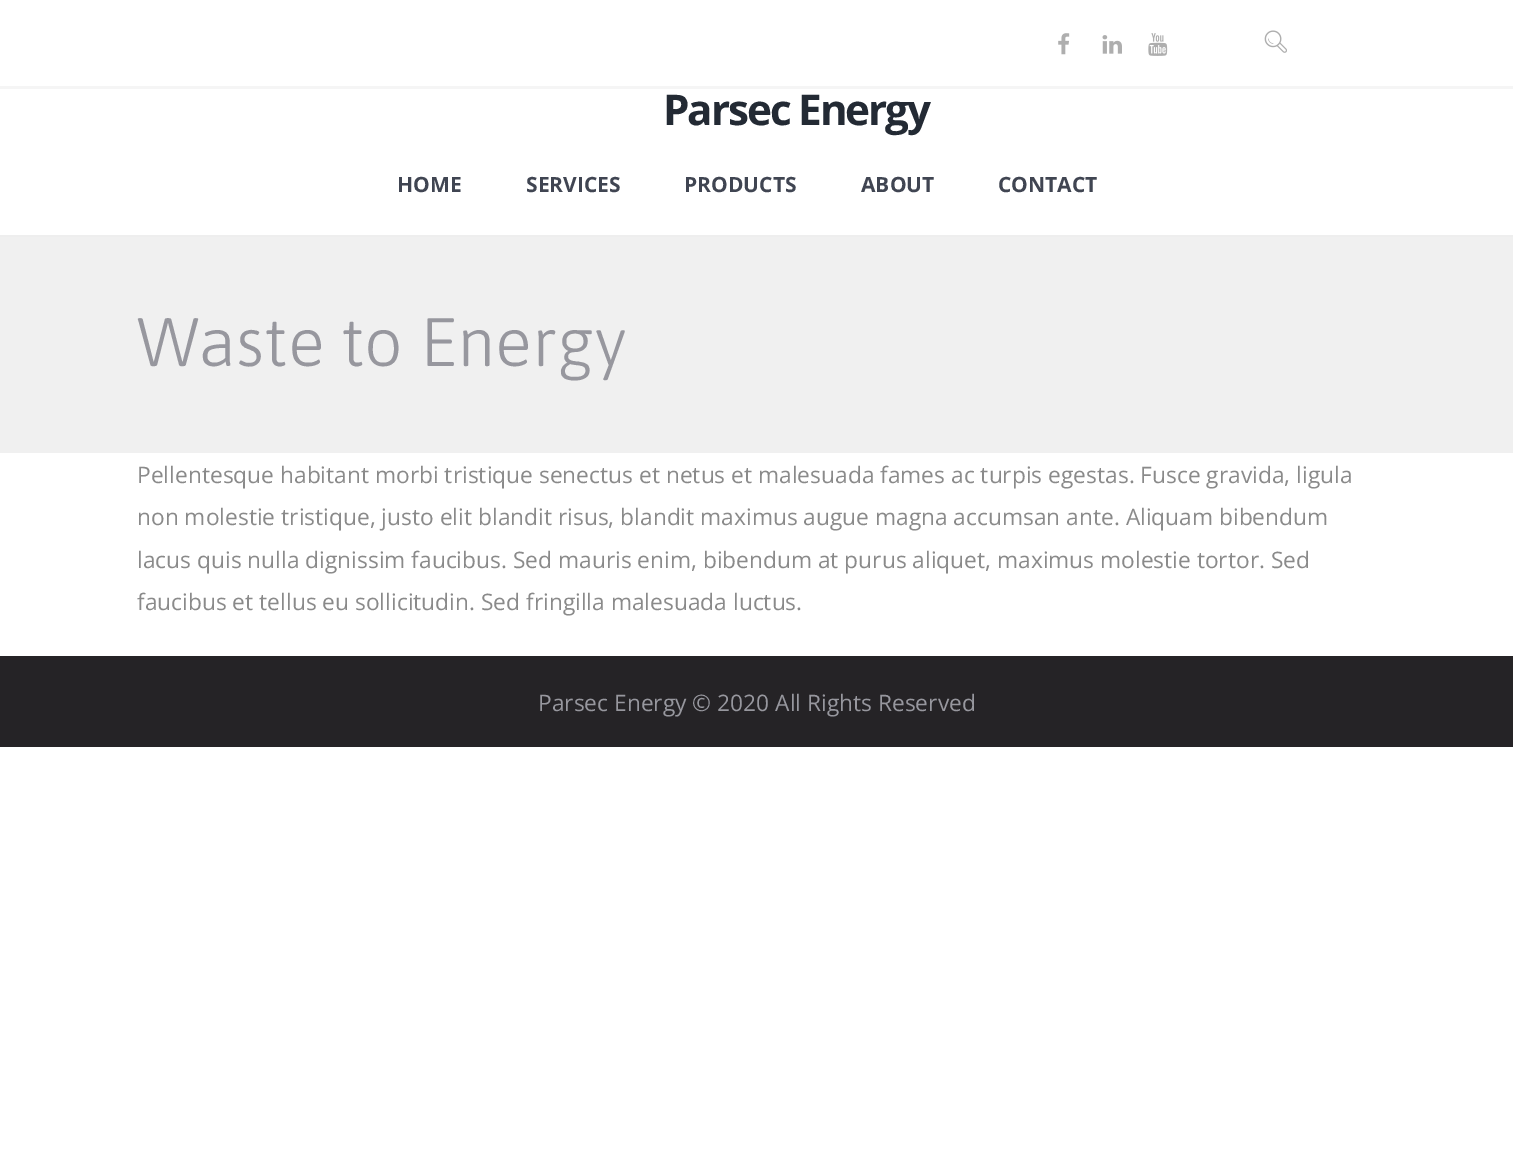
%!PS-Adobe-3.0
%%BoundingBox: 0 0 1513 1151
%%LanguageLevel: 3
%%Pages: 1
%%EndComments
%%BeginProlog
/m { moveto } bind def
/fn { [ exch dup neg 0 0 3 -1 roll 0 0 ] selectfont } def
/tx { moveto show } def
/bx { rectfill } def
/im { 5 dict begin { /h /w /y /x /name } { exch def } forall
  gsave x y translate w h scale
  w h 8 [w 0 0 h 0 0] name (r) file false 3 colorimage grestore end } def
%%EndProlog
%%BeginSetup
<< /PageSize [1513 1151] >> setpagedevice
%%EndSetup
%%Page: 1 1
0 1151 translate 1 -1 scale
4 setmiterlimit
1 setgray
0 0 1513 1151 bx
0.961 setgray
0 86 1513 3 bx
(image0.raw) 1058 33 12 22 im
(image1.raw) 1102 35 20 19 im
(image2.raw) 1148 33 20 23 im
(image3.raw) 1264 30 23 23 im
/OpenSans-Bold 42.25 fn
0.137 0.165 0.204 setrgbcolor
663 125 m -2.1 0 (Parsec Energy) ashow
/OpenSans-Bold 21 fn
0.251 0.271 0.322 setrgbcolor
(HOME) 397 192 tx
(SERVICES) 526 192 tx
(PRODUCTS) 684 192 tx
(ABOUT) 861 192 tx
(CONTACT) 998 192 tx
0.941 setgray
0 237 1513 216 bx
0.933 setgray
0 235 1513 2 bx
/Asap-Light 68.25 fn
0.592 0.592 0.62 setrgbcolor
(Waste to Energy) 137 366 tx
/OpenSans-Regular 22.75 fn
0.541 setgray
(Pellentesque habitant morbi tristique senectus et netus et malesuada fames ac turpis egestas. Fusce gravida, ligula) 137 483 tx
(non molestie tristique, justo elit blandit risus, blandit maximus augue magna accumsan ante. Aliquam bibendum) 137 525 tx
(lacus quis nulla dignissim faucibus. Sed mauris enim, bibendum at purus aliquet, maximus molestie tortor. Sed) 137 568 tx
(faucibus et tellus eu sollicitudin. Sed fringilla malesuada luctus.) 137 610 tx
0.145 0.137 0.149 setrgbcolor
0 656 1513 91 bx
0.592 0.592 0.62 setrgbcolor
(Parsec Energy © 2020 All Rights Reserved) 538 711 tx
showpage
%%EOF
